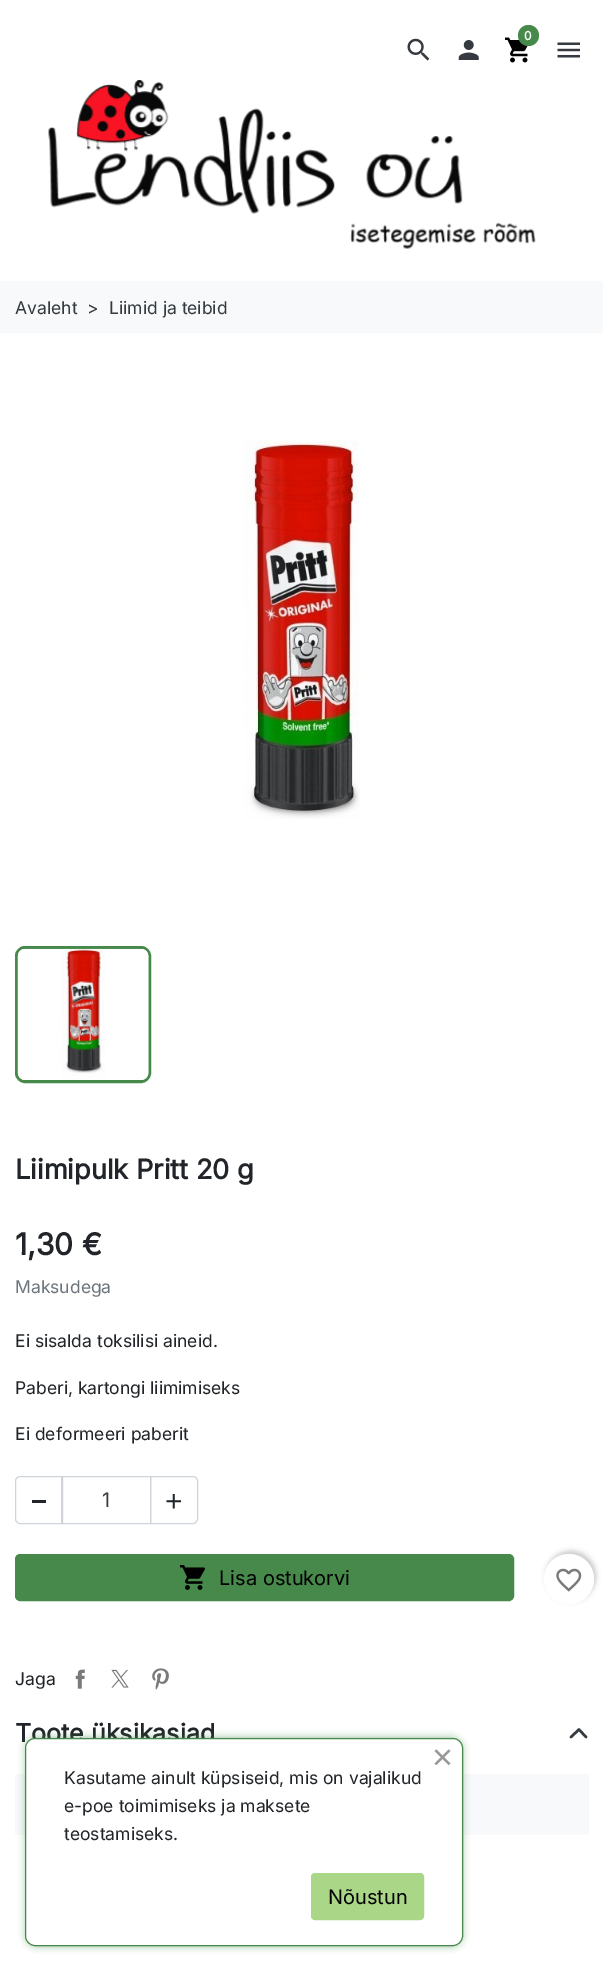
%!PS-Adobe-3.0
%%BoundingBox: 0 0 603 1971
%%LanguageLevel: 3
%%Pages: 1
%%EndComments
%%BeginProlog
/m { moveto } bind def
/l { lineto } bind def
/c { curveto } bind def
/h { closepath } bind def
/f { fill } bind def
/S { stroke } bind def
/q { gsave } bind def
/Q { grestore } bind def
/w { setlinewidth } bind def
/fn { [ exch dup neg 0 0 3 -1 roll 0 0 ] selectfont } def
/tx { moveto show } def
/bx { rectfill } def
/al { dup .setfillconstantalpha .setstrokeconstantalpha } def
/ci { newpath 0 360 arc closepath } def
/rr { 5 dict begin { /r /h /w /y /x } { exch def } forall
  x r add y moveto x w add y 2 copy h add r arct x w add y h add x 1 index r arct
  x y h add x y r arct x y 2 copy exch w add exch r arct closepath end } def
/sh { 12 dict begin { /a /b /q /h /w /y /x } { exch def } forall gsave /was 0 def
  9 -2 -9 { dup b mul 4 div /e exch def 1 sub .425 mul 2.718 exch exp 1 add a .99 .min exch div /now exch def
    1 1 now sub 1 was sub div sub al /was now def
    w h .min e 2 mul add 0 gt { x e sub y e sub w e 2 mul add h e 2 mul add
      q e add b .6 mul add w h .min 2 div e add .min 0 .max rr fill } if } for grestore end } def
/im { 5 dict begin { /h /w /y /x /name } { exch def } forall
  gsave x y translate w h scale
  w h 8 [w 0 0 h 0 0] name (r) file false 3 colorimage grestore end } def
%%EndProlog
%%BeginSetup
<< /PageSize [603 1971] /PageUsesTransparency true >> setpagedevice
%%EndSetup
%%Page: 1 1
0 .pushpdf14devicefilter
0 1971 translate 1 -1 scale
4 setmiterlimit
1 setgray
0 0 603 1971 bx
(image0.raw) 505 37 23 26 im
0.278 0.537 0.294 setrgbcolor
528.5 35.5 10.5 ci f
/Inter-Bold 12 fn
1 setgray
(0) 524 40 tx
(image1.raw) 407 38 23 23 im
(image2.raw) 458 40 21 20 im
(image3.raw) 557 42 23 16 im
(image4.raw) 48 80 488 169 im
0.973 0.976 0.98 setrgbcolor
0 281 603 52 bx
/Inter-Regular 17.5 fn
0.204 0.227 0.251 setrgbcolor
(Avaleht) 15 314 tx
(>) 87 314 tx
(Liimid ja teibid) 109 314 tx
(image5.raw) 244 440 116 379 im
0.278 0.537 0.294 setrgbcolor
3 w
16.5 947.5 133 134 8.5 rr S
(image6.raw) 17 948 132 132 im
/Inter-Bold 27.25 fn
0.129 0.145 0.161 setrgbcolor
(Liimipulk Pritt 20 g) 15 1179 tx
/Inter-Bold 30 fn
(1,30 €) 15 1255 tx
/Inter-Regular 17.5 fn
0.424 0.459 0.49 setrgbcolor
(Maksudega) 15 1293 tx
0.129 0.145 0.161 setrgbcolor
(Ei sisalda toksilisi aineid.) 15 1347 tx
(Paberi, kartongi liimimiseks) 15 1394 tx
(Ei deformeeri paberit) 15 1440 tx
0.808 0.831 0.855 setrgbcolor
1 w
61.5 1476.5 89 47 rectstroke
20 1476.5 m 62.5 1476.5 l 62.5 1523.5 l 20 1523.5 l 17.5 1523.5 15.5 1521.5 15.5 1519 c 15.5 1481 l 15.5 1478.5 17.5 1476.5 20 1476.5 c h S
0.129 0.145 0.161 setrgbcolor
32 1500 14 3 bx
/Inter-Regular 20 fn
0.204 0.227 0.251 setrgbcolor
(1) 102 1507 tx
0.808 0.831 0.855 setrgbcolor
150.5 1476.5 m 193 1476.5 l 195.5 1476.5 197.5 1478.5 197.5 1481 c 197.5 1519 l 197.5 1521.5 195.5 1523.5 193 1523.5 c 150.5 1523.5 l h S
(image7.raw) 166 1493 16 16 im
0.278 0.537 0.294 setrgbcolor
15.5 1554.5 498 46 4.5 rr q f Q
S
(image8.raw) 180 1565 25 25 im
0 setgray
(Lisa ostukorvi) 219 1585 tx
546 1551 50 50 25 2.5 0.2 sh
1 setgray
569 1579 25 ci f
(image9.raw) 556 1568 26 24 im
/Inter-Regular 17.5 fn
0.129 0.145 0.161 setrgbcolor
(Jaga) 15 1685 tx
(image10.raw) 75 1669 10 20 im
(image11.raw) 111 1669 18 19 im
(image12.raw) 152 1668 17 22 im
/Inter-Bold 25 fn
(Toote üksikasjad) 15 1742 tx
0.212 0.227 0.255 setrgbcolor
2.5 w
1 setlinecap
1 setlinejoin
586 1737 m 579 1729.5 l 571 1737 l S
0.973 0.976 0.98 setrgbcolor
15 1774 574 61 bx
0.278 0.537 0.294 setrgbcolor
28 1740 432 204 8 4.5 1 sh
1 setgray
25.5 1738.5 437 207 9.5 rr q f Q
0.278 0.537 0.294 setrgbcolor
1 w
0 setlinecap
0 setlinejoin
S
0.6 setgray
434.5 1763.5 m 448.5 1749.5 l 450.5 1751 l 436.5 1765 l h f
436.5 1749.5 m 450.5 1763.5 l 448.5 1765 l 434.5 1751 l h f
/Inter-Regular 17.5 fn
0.129 0.145 0.161 setrgbcolor
(Kasutame ainult küpsiseid, mis on vajalikud) 64 1784 tx
(e-poe toimimiseks ja maksete) 64 1812 tx
(teostamiseks.) 64 1840 tx
0.667 0.839 0.533 setrgbcolor
311.5 1873.5 112 46 3.5 rr q f Q
S
/Inter-Regular 20 fn
0 setgray
(Nõustun) 328 1904 tx
.poppdf14devicefilter showpage
%%EOF
